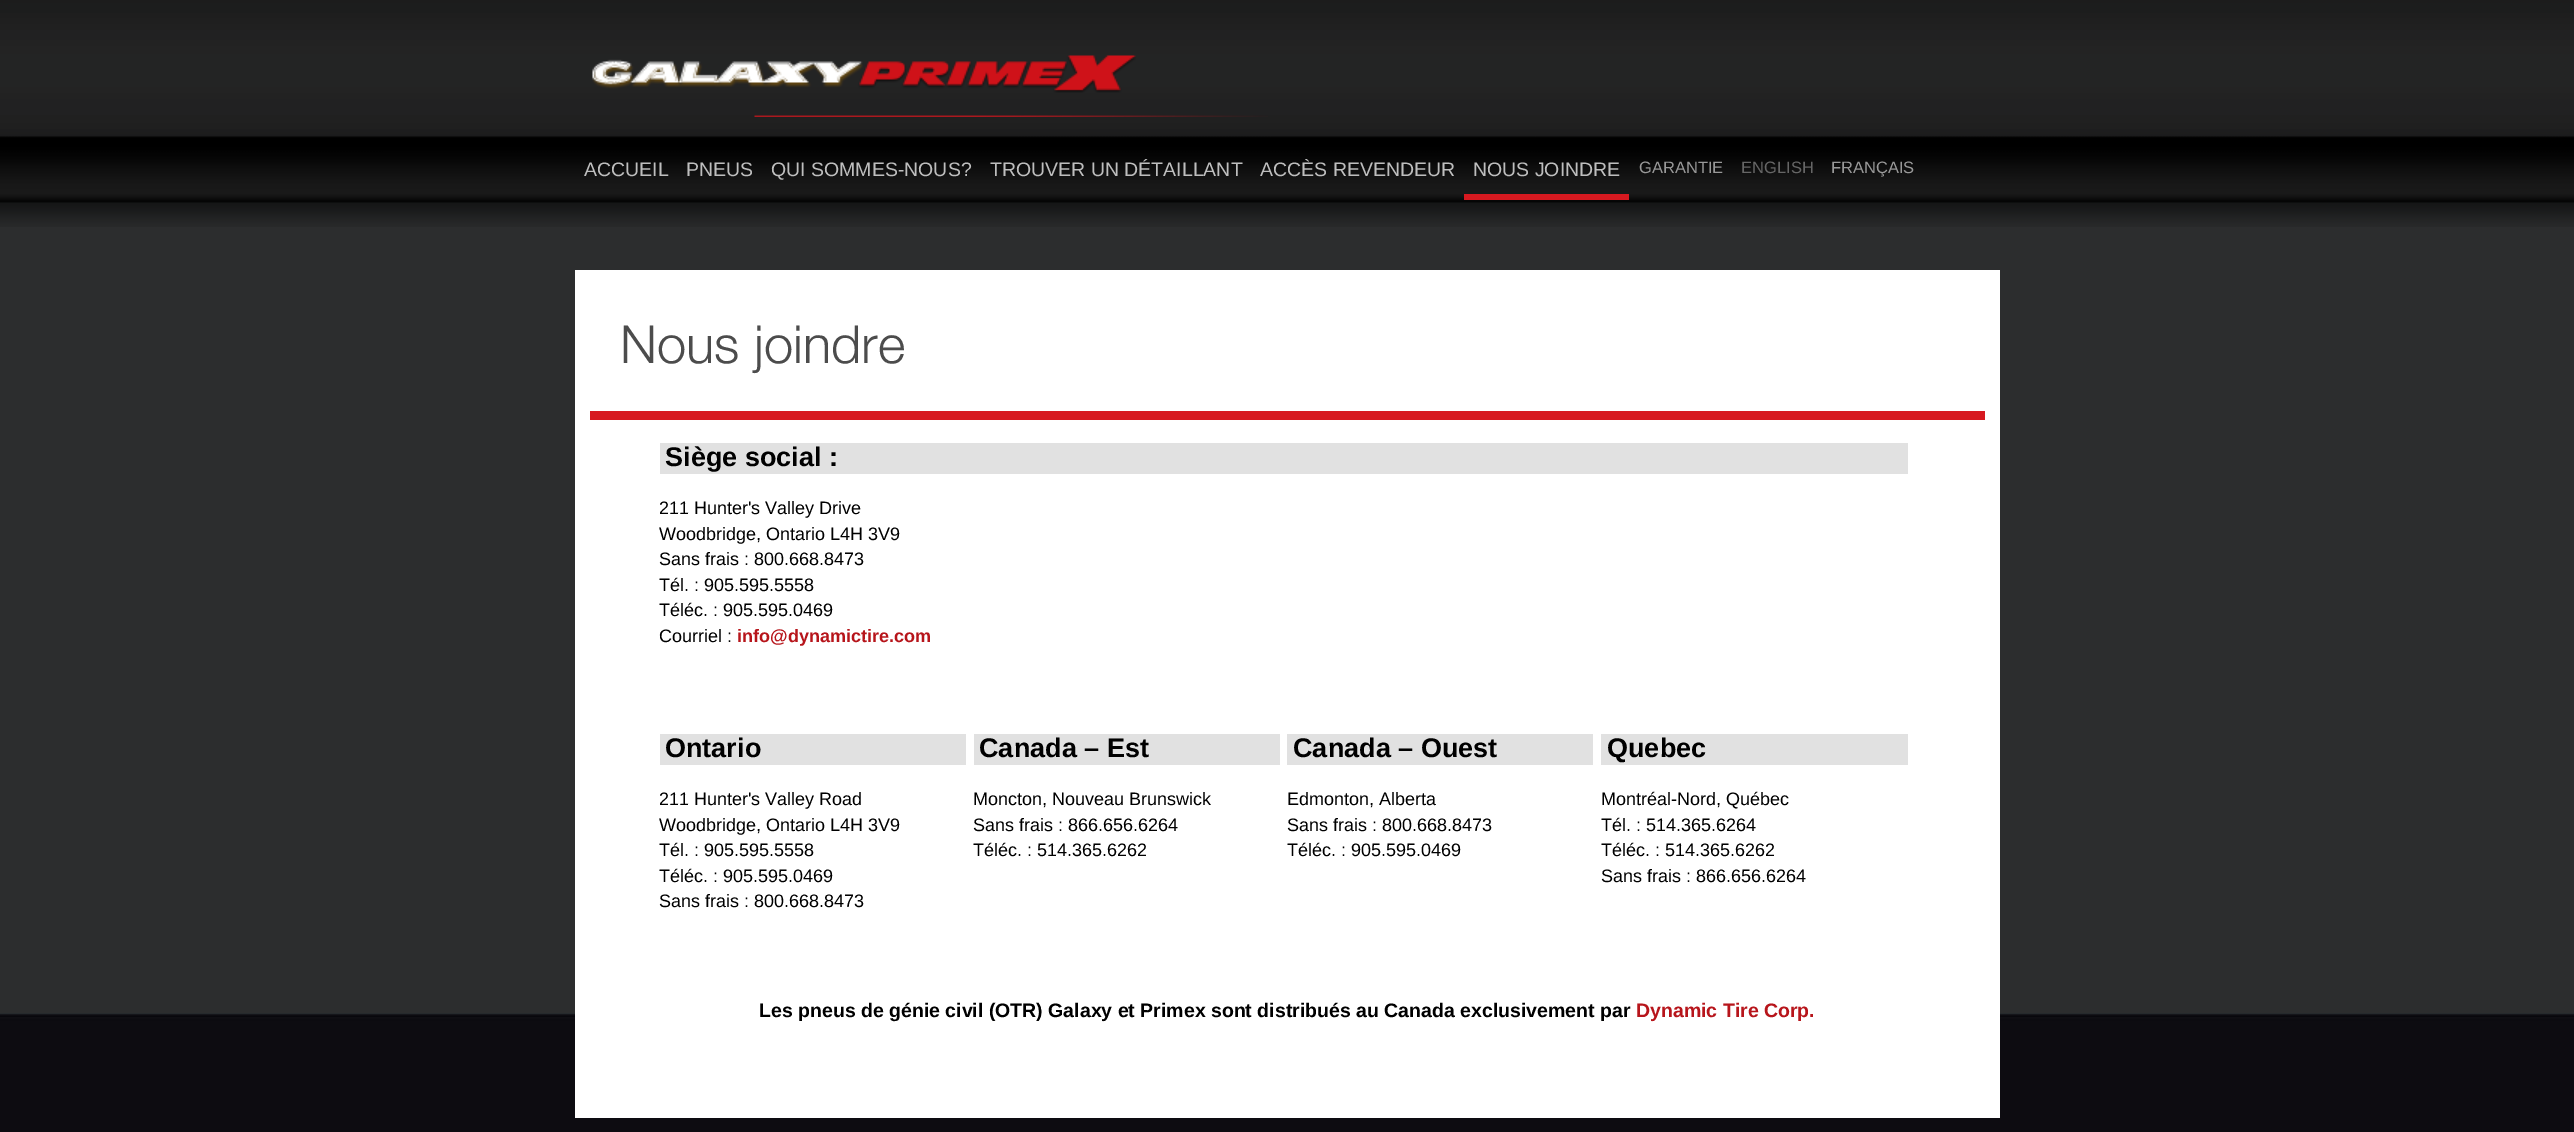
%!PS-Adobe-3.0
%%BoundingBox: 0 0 2574 1132
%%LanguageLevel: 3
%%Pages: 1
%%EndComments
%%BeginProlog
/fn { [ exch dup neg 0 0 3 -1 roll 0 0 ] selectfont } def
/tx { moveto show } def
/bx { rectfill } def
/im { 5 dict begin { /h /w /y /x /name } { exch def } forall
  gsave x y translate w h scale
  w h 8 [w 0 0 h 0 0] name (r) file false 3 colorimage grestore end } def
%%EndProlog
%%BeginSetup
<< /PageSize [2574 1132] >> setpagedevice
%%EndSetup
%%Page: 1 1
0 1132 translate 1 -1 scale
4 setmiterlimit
0.173 0.176 0.18 setrgbcolor
0 0 2574 1132 bx
(image0.raw) 0 0 2574 227 im
(image1.raw) 592 55 544 38 im
(image2.raw) 754 115 514 2 im
/LiberationSans-Regular 19.5 fn
0.745 setgray
(ACCUEIL) 584 176 tx
(PNEUS) 686 176 tx
(QUI SOMMES-NOUS?) 771 176 tx
(TROUVER UN DÉTAILLANT) 990 176 tx
(ACCÈS REVENDEUR) 1260 176 tx
0.843 0.098 0.125 setrgbcolor
1464 194 165 6 bx
0.745 setgray
(NOUS JOINDRE) 1473 176 tx
/LiberationSans-Regular 16.5 fn
0.6 setgray
(GARANTIE) 1639 173 tx
0.4 setgray
(ENGLISH) 1741 173 tx
0.6 setgray
(FRANÇAIS) 1831 173 tx
(image3.raw) 0 1013 2574 119 im
1 setgray
575 270 1425 848 bx
0.843 0.098 0.125 setrgbcolor
590 411 1395 9 bx
/HelveticaNeue-Light 52.5 fn
0.298 setgray
(Nous joindre) 620 363 tx
0.882 setgray
660 443 1248 31 bx
/LiberationSans-Bold 27 fn
0 setgray
(Siège social :) 665 466 tx
/LiberationSans-Regular 18 fn
(211 Hunter's Valley Drive) 659 514 tx
(Woodbridge, Ontario L4H 3V9) 659 540 tx
(Sans frais : 800.668.8473) 659 565 tx
(Tél. : 905.595.5558) 659 591 tx
(Téléc. : 905.595.0469) 659 616 tx
(Courriel :) 659 642 tx
/LiberationSans-Bold 18 fn
0.718 0.082 0.106 setrgbcolor
(info@dynamictire.com) 737 642 tx
0.882 setgray
660 734 306 31 bx
/LiberationSans-Bold 27 fn
0 setgray
(Ontario) 665 757 tx
/LiberationSans-Regular 18 fn
(211 Hunter's Valley Road) 659 805 tx
(Woodbridge, Ontario L4H 3V9) 659 831 tx
(Tél. : 905.595.5558) 659 856 tx
(Téléc. : 905.595.0469) 659 882 tx
(Sans frais : 800.668.8473) 659 907 tx
0.882 setgray
974 734 306 31 bx
/LiberationSans-Bold 27 fn
0 setgray
(Canada – Est) 979 757 tx
/LiberationSans-Regular 18 fn
(Moncton, Nouveau Brunswick) 973 805 tx
(Sans frais : 866.656.6264) 973 831 tx
(Téléc. : 514.365.6262) 973 856 tx
0.882 setgray
1287 734 306 31 bx
/LiberationSans-Bold 27 fn
0 setgray
(Canada – Ouest) 1293 757 tx
/LiberationSans-Regular 18 fn
(Edmonton, Alberta) 1287 805 tx
(Sans frais : 800.668.8473) 1287 831 tx
(Téléc. : 905.595.0469) 1287 856 tx
0.882 setgray
1601 734 307 31 bx
/LiberationSans-Bold 27 fn
0 setgray
(Quebec) 1607 757 tx
/LiberationSans-Regular 18 fn
(Montréal-Nord, Québec) 1601 805 tx
(Tél. : 514.365.6264) 1601 831 tx
(Téléc. : 514.365.6262) 1601 856 tx
(Sans frais : 866.656.6264) 1601 882 tx
/LiberationSans-Bold 19.5 fn
(Les pneus de génie civil \(OTR\) Galaxy et Primex sont distribués au Canada exclusivement par) 759 1017 tx
0.718 0.082 0.106 setrgbcolor
(Dynamic Tire Corp.) 1636 1017 tx
showpage
%%EOF
